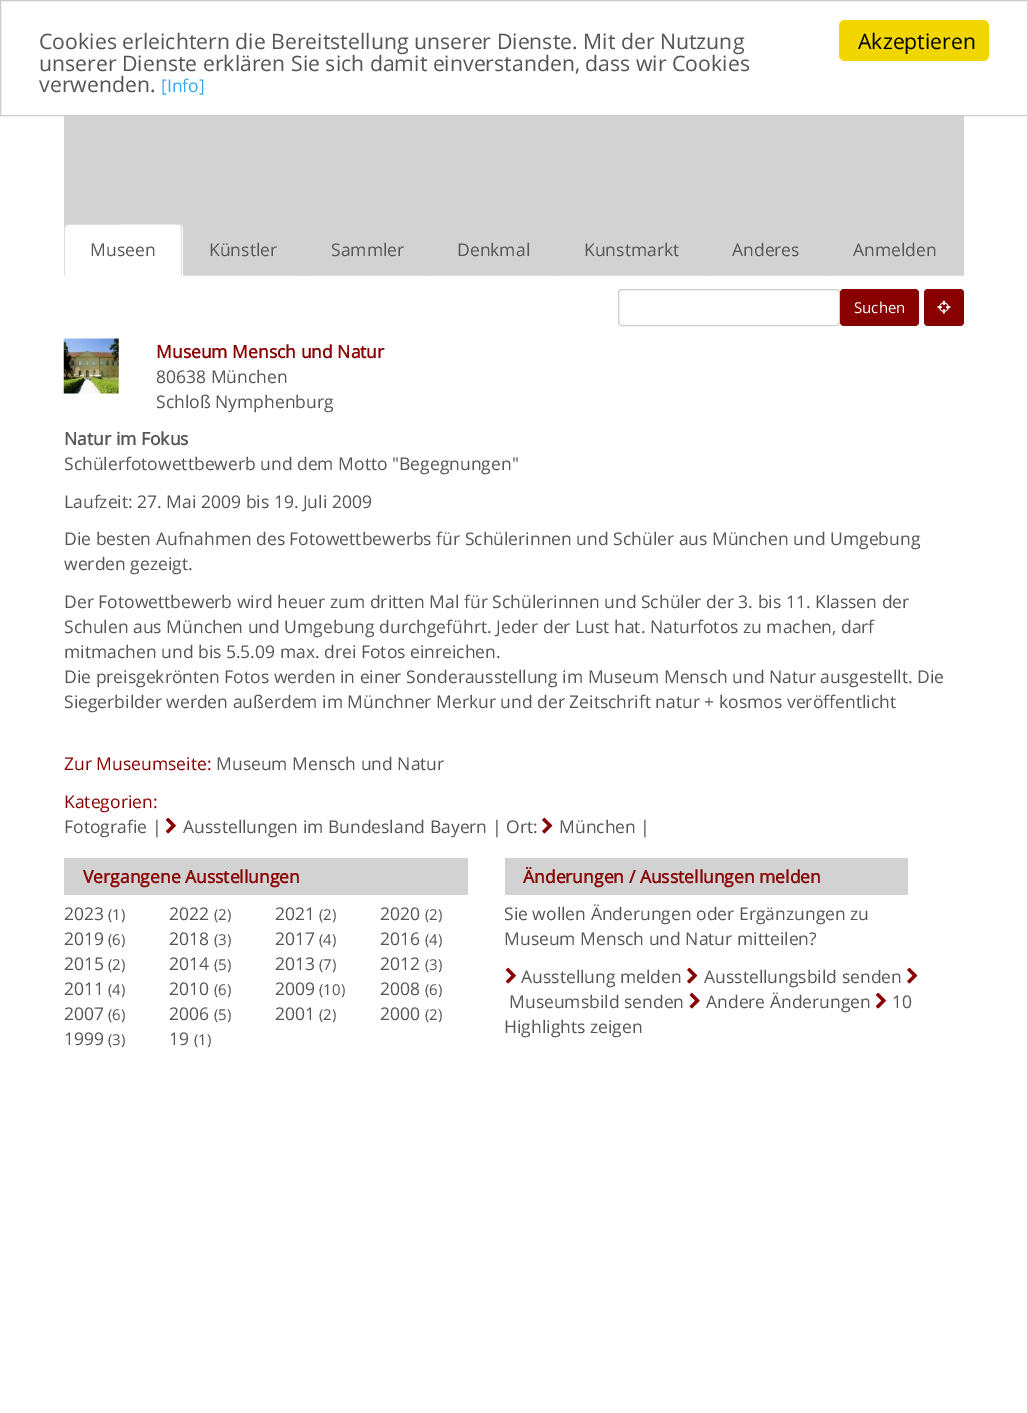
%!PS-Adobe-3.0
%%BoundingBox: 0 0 1027 1413
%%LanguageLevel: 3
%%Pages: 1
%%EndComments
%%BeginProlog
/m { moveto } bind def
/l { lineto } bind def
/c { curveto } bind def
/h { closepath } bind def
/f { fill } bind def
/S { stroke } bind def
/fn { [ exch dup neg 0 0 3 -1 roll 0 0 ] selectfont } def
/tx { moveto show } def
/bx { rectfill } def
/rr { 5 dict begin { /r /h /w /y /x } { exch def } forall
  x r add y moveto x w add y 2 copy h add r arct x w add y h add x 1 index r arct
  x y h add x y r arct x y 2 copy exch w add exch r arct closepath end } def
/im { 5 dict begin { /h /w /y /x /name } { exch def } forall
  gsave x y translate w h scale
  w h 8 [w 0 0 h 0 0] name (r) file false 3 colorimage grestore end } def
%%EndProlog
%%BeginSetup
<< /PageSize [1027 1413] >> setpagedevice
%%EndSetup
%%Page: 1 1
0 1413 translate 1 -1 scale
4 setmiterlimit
1 setgray
0 0 1027 1413 bx
0.8 setgray
0.5 0.5 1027 115 rectstroke
/OpenSans-Regular 21.25 fn
0.333 setgray
(Cookies erleichtern die Bereitstellung unserer Dienste. Mit der Nutzung) 39 49 tx
(unserer Dienste erklären Sie sich damit einverstanden, dass wir Cookies) 39 71 tx
(verwenden.) 39 92 tx
/OpenSans-Regular 17.5 fn
0.192 0.659 0.941 setrgbcolor
([Info]) 161 92 tx
0.945 0.839 0 setrgbcolor
839 20 150 41 6 rr f
/OpenSans-Regular 21.25 fn
0 setgray
(Akzeptieren) 858 49 tx
0.824 setgray
64 116 900 160 bx
1 setgray
69 224 m 178 224 l 181 224 183 226 183 229 c 183 276 l 64 276 l 64 229 l 64 226 66 224 69 224 c h f
0.867 setgray
69 224 m 68 224 66 224 65 225 c 66 226 l 69 225 l 87 225 l 96 225 178 224 179 225 c 180 226 l 181 225 l 180 225 179 224 178 224 c h f
182 276 m 182 229 l 182 228 182 226 181 225 c 180 226 l 181 229 l 181 275 l h f
1 setgray
182 276 m 64 276 l 65 275 l 181 275 l h f
0.867 setgray
65 225 m 64 226 64 228 64 229 c 64 276 l 65 275 l 65 229 l 65 228 66 227 66 226 c h f
/OpenSans-Regular 17.5 fn
0.333 setgray
(Museen) 90 256 tx
0.867 setgray
304 276 m 183 276 l 184 275 l 302 275 l 302 274 l h f
0.333 setgray
(Künstler) 209 256 tx
0.867 setgray
430 276 m 304 276 l 305 275 l 429 275 l h f
0.333 setgray
(Sammler) 331 256 tx
0.867 setgray
557 276 m 430 276 l 431 275 l 556 275 l h f
0.333 setgray
(Denkmal) 457 256 tx
0.867 setgray
705 276 m 558 276 l 559 275 l 704 275 l h f
0.333 setgray
(Kunstmarkt) 584 256 tx
0.867 setgray
826 276 m 825 275 l 706 275 l 705 276 l h f
0.333 setgray
(Anderes) 732 256 tx
0.867 setgray
964 276 m 826 276 l 828 274 l 828 275 l 962 275 l 962 274 l h f
0.333 setgray
(Anmelden) 853 256 tx
0.8 setgray
618.5 289.5 221 36 3.5 rr S
0.533 0 0 setrgbcolor
840 289 79 37 4 rr f
/OpenSans-Regular 15 fn
1 setgray
(Suchen) 854 313 tx
0.533 0 0 setrgbcolor
924 289 40 37 4 rr f
(image0.raw) 937 300 14 14 im
(image1.raw) 63 338 56 56 im
/OpenSans-Bold 17.5 fn
(Museum Mensch und Natur) 156 358 tx
/OpenSans-Regular 17.5 fn
0.333 setgray
(80638 München) 156 383 tx
(Schloß Nymphenburg) 156 408 tx
/OpenSans-Bold 17.5 fn
(Natur im Fokus) 64 445 tx
/OpenSans-Regular 17.5 fn
(Schülerfotowettbewerb und dem Motto "Begegnungen") 64 470 tx
(Laufzeit: 27. Mai 2009 bis 19. Juli 2009) 64 508 tx
(Die besten Aufnahmen des Fotowettbewerbs für Schülerinnen und Schüler aus München und Umgebung) 64 545 tx
(werden gezeigt.) 64 570 tx
(Der Fotowettbewerb wird heuer zum dritten Mal für Schülerinnen und Schüler der 3. bis 11. Klassen der) 64 608 tx
(Schulen aus München und Umgebung durchgeführt. Jeder der Lust hat. Naturfotos zu machen, darf) 64 633 tx
(mitmachen und bis 5.5.09 max. drei Fotos einreichen.) 64 658 tx
(Die preisgekrönten Fotos werden in einer Sonderausstellung im Museum Mensch und Natur ausgestellt. Die) 64 683 tx
(Siegerbilder werden außerdem im Münchner Merkur und der Zeitschrift natur + kosmos veröffentlicht) 64 708 tx
0.533 0 0 setrgbcolor
(Zur Museumseite:) 64 770 tx
0.333 setgray
(Museum Mensch und Natur) 216 770 tx
0.533 0 0 setrgbcolor
(Kategorien:) 64 808 tx
0.333 setgray
(Fotografie |) 64 833 tx
(image2.raw) 165 817 11 17 im
(Ausstellungen im Bundesland Bayern | Ort:) 183 833 tx
(image3.raw) 542 817 11 17 im
(München |) 559 833 tx
0.824 setgray
64 858 404 37 bx
/OpenSans-Bold 17.5 fn
0.533 0 0 setrgbcolor
(Vergangene Ausstellungen) 83 883 tx
/OpenSans-Regular 17.5 fn
0.333 setgray
(2023) 64 920 tx
/OpenSans-Regular 15 fn
(\(1\)) 108 920 tx
/OpenSans-Regular 17.5 fn
(2022) 169 920 tx
/OpenSans-Regular 15 fn
(\(2\)) 214 920 tx
/OpenSans-Regular 17.5 fn
(2021) 275 920 tx
/OpenSans-Regular 15 fn
(\(2\)) 319 920 tx
/OpenSans-Regular 17.5 fn
(2020) 380 920 tx
/OpenSans-Regular 15 fn
(\(2\)) 425 920 tx
/OpenSans-Regular 17.5 fn
(2019) 64 945 tx
/OpenSans-Regular 15 fn
(\(6\)) 108 945 tx
/OpenSans-Regular 17.5 fn
(2018) 169 945 tx
/OpenSans-Regular 15 fn
(\(3\)) 214 945 tx
/OpenSans-Regular 17.5 fn
(2017) 275 945 tx
/OpenSans-Regular 15 fn
(\(4\)) 319 945 tx
/OpenSans-Regular 17.5 fn
(2016) 380 945 tx
/OpenSans-Regular 15 fn
(\(4\)) 425 945 tx
/OpenSans-Regular 17.5 fn
(2015) 64 970 tx
/OpenSans-Regular 15 fn
(\(2\)) 108 970 tx
/OpenSans-Regular 17.5 fn
(2014) 169 970 tx
/OpenSans-Regular 15 fn
(\(5\)) 214 970 tx
/OpenSans-Regular 17.5 fn
(2013) 275 970 tx
/OpenSans-Regular 15 fn
(\(7\)) 319 970 tx
/OpenSans-Regular 17.5 fn
(2012) 380 970 tx
/OpenSans-Regular 15 fn
(\(3\)) 425 970 tx
/OpenSans-Regular 17.5 fn
(2011) 64 995 tx
/OpenSans-Regular 15 fn
(\(4\)) 108 995 tx
/OpenSans-Regular 17.5 fn
(2010) 169 995 tx
/OpenSans-Regular 15 fn
(\(6\)) 214 995 tx
/OpenSans-Regular 17.5 fn
(2009) 275 995 tx
/OpenSans-Regular 15 fn
(\(10\)) 319 995 tx
/OpenSans-Regular 17.5 fn
(2008) 380 995 tx
/OpenSans-Regular 15 fn
(\(6\)) 425 995 tx
/OpenSans-Regular 17.5 fn
(2007) 64 1020 tx
/OpenSans-Regular 15 fn
(\(6\)) 108 1020 tx
/OpenSans-Regular 17.5 fn
(2006) 169 1020 tx
/OpenSans-Regular 15 fn
(\(5\)) 214 1020 tx
/OpenSans-Regular 17.5 fn
(2001) 275 1020 tx
/OpenSans-Regular 15 fn
(\(2\)) 319 1020 tx
/OpenSans-Regular 17.5 fn
(2000) 380 1020 tx
/OpenSans-Regular 15 fn
(\(2\)) 425 1020 tx
/OpenSans-Regular 17.5 fn
(1999) 64 1045 tx
/OpenSans-Regular 15 fn
(\(3\)) 108 1045 tx
/OpenSans-Regular 17.5 fn
(19) 169 1045 tx
/OpenSans-Regular 15 fn
(\(1\)) 194 1045 tx
0.824 setgray
505 858 403 37 bx
/OpenSans-Bold 17.5 fn
0.533 0 0 setrgbcolor
(Änderungen / Ausstellungen melden) 523 883 tx
/OpenSans-Regular 17.5 fn
0.333 setgray
(Sie wollen Änderungen oder Ergänzungen zu) 504 920 tx
(Museum Mensch und Natur mitteilen?) 504 945 tx
(image2.raw) 505 967 11 17 im
(Ausstellung melden) 521 983 tx
(image3.raw) 687 967 11 17 im
(Ausstellungsbild senden) 704 983 tx
(image3.raw) 907 967 11 17 im
(Museumsbild senden) 509 1008 tx
(image4.raw) 689 992 11 17 im
(Andere Änderungen) 706 1008 tx
(image2.raw) 875 992 11 17 im
(10) 892 1008 tx
(Highlights zeigen) 504 1033 tx
showpage
%%EOF
